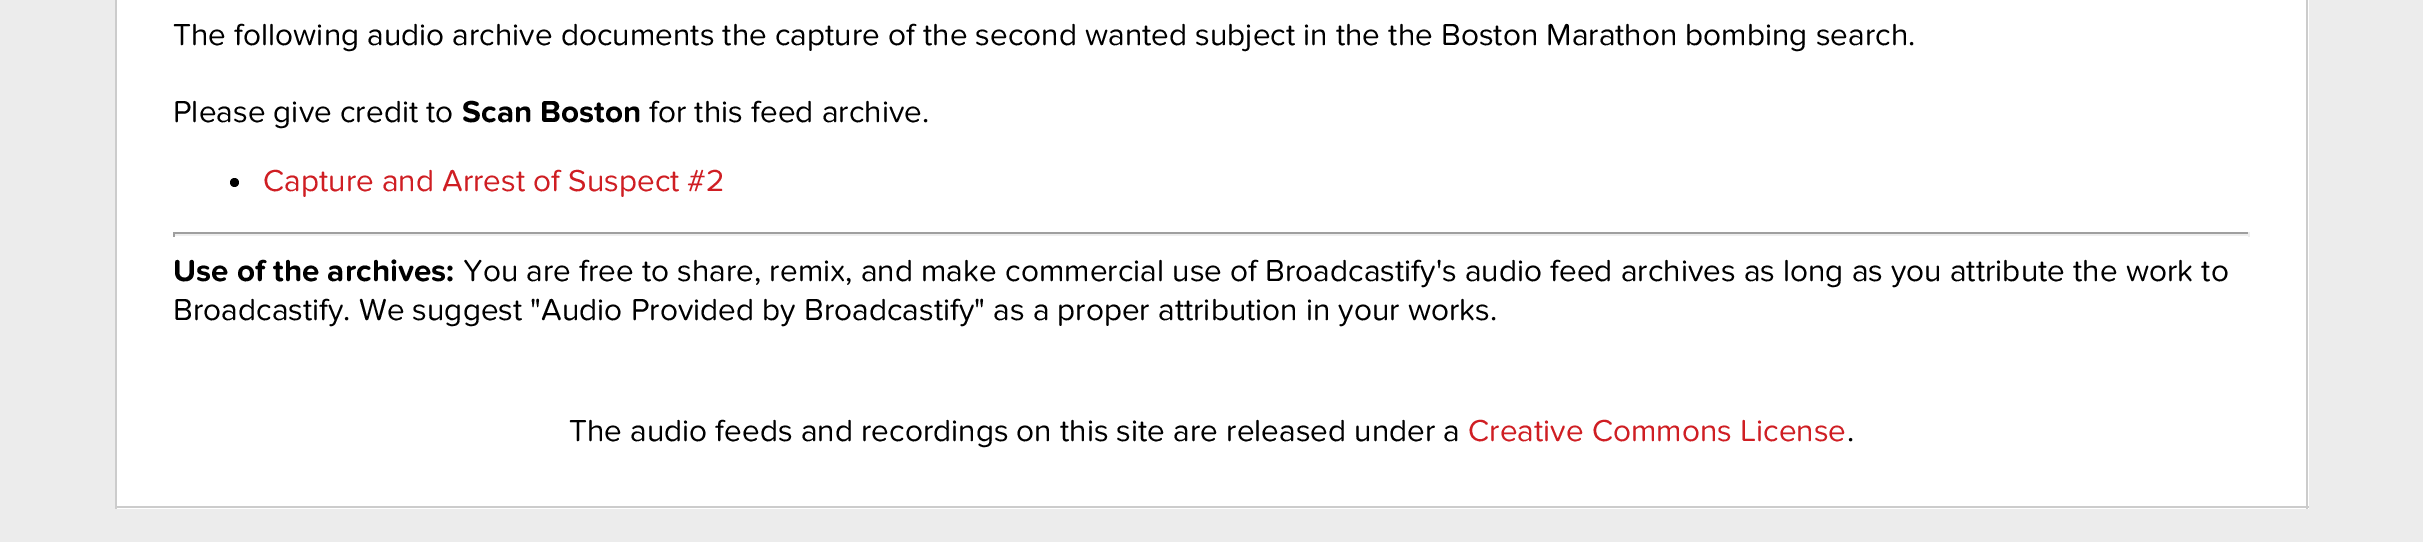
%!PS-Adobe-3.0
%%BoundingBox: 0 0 2423 542
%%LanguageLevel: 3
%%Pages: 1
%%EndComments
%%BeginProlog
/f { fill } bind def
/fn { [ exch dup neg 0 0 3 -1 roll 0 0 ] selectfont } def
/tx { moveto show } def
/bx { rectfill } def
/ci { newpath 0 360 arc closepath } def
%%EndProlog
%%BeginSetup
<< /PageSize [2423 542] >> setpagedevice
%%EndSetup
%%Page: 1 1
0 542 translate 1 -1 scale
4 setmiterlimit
0.925 setgray
0 0 2423 542 bx
1 setgray
117 0 2192 509 bx
0.8 setgray
2306 0 2 509 bx
115 506 2194 2 bx
115 0 2 509 bx
/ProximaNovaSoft-Regular 31.5 fn
0 setgray
(The following audio archive documents the capture of the second wanted subject in the the Boston Marathon bombing search.) 173 45 tx
(Please give credit to) 173 122 tx
/ProximaNovaSoft-Bold 31.5 fn
(Scan Boston) 462 122 tx
/ProximaNovaSoft-Regular 31.5 fn
(for this feed archive.) 649 122 tx
234.5 182.5 4.5 ci f
0.812 0.118 0.137 setrgbcolor
(Capture and Arrest of Suspect #2) 263 191 tx
0.624 setgray
173 232 2077 2 bx
0.933 setgray
2248 232 2 5 bx
173 234 2077 2 bx
0.624 setgray
173 232 2 5 bx
/ProximaNovaSoft-Bold 31.5 fn
0 setgray
(Use of the archives:) 173 281 tx
/ProximaNovaSoft-Regular 31.5 fn
(You are free to share, remix, and make commercial use of Broadcastify's audio feed archives as long as you attribute the work to) 463 281 tx
(Broadcastify. We suggest "Audio Provided by Broadcastify" as a proper attribution in your works.) 173 320 tx
(The audio feeds and recordings on this site are released under a) 569 441 tx
0.812 0.118 0.137 setrgbcolor
(Creative Commons License) 1468 441 tx
0 setgray
(.) 1847 441 tx
showpage
%%EOF
